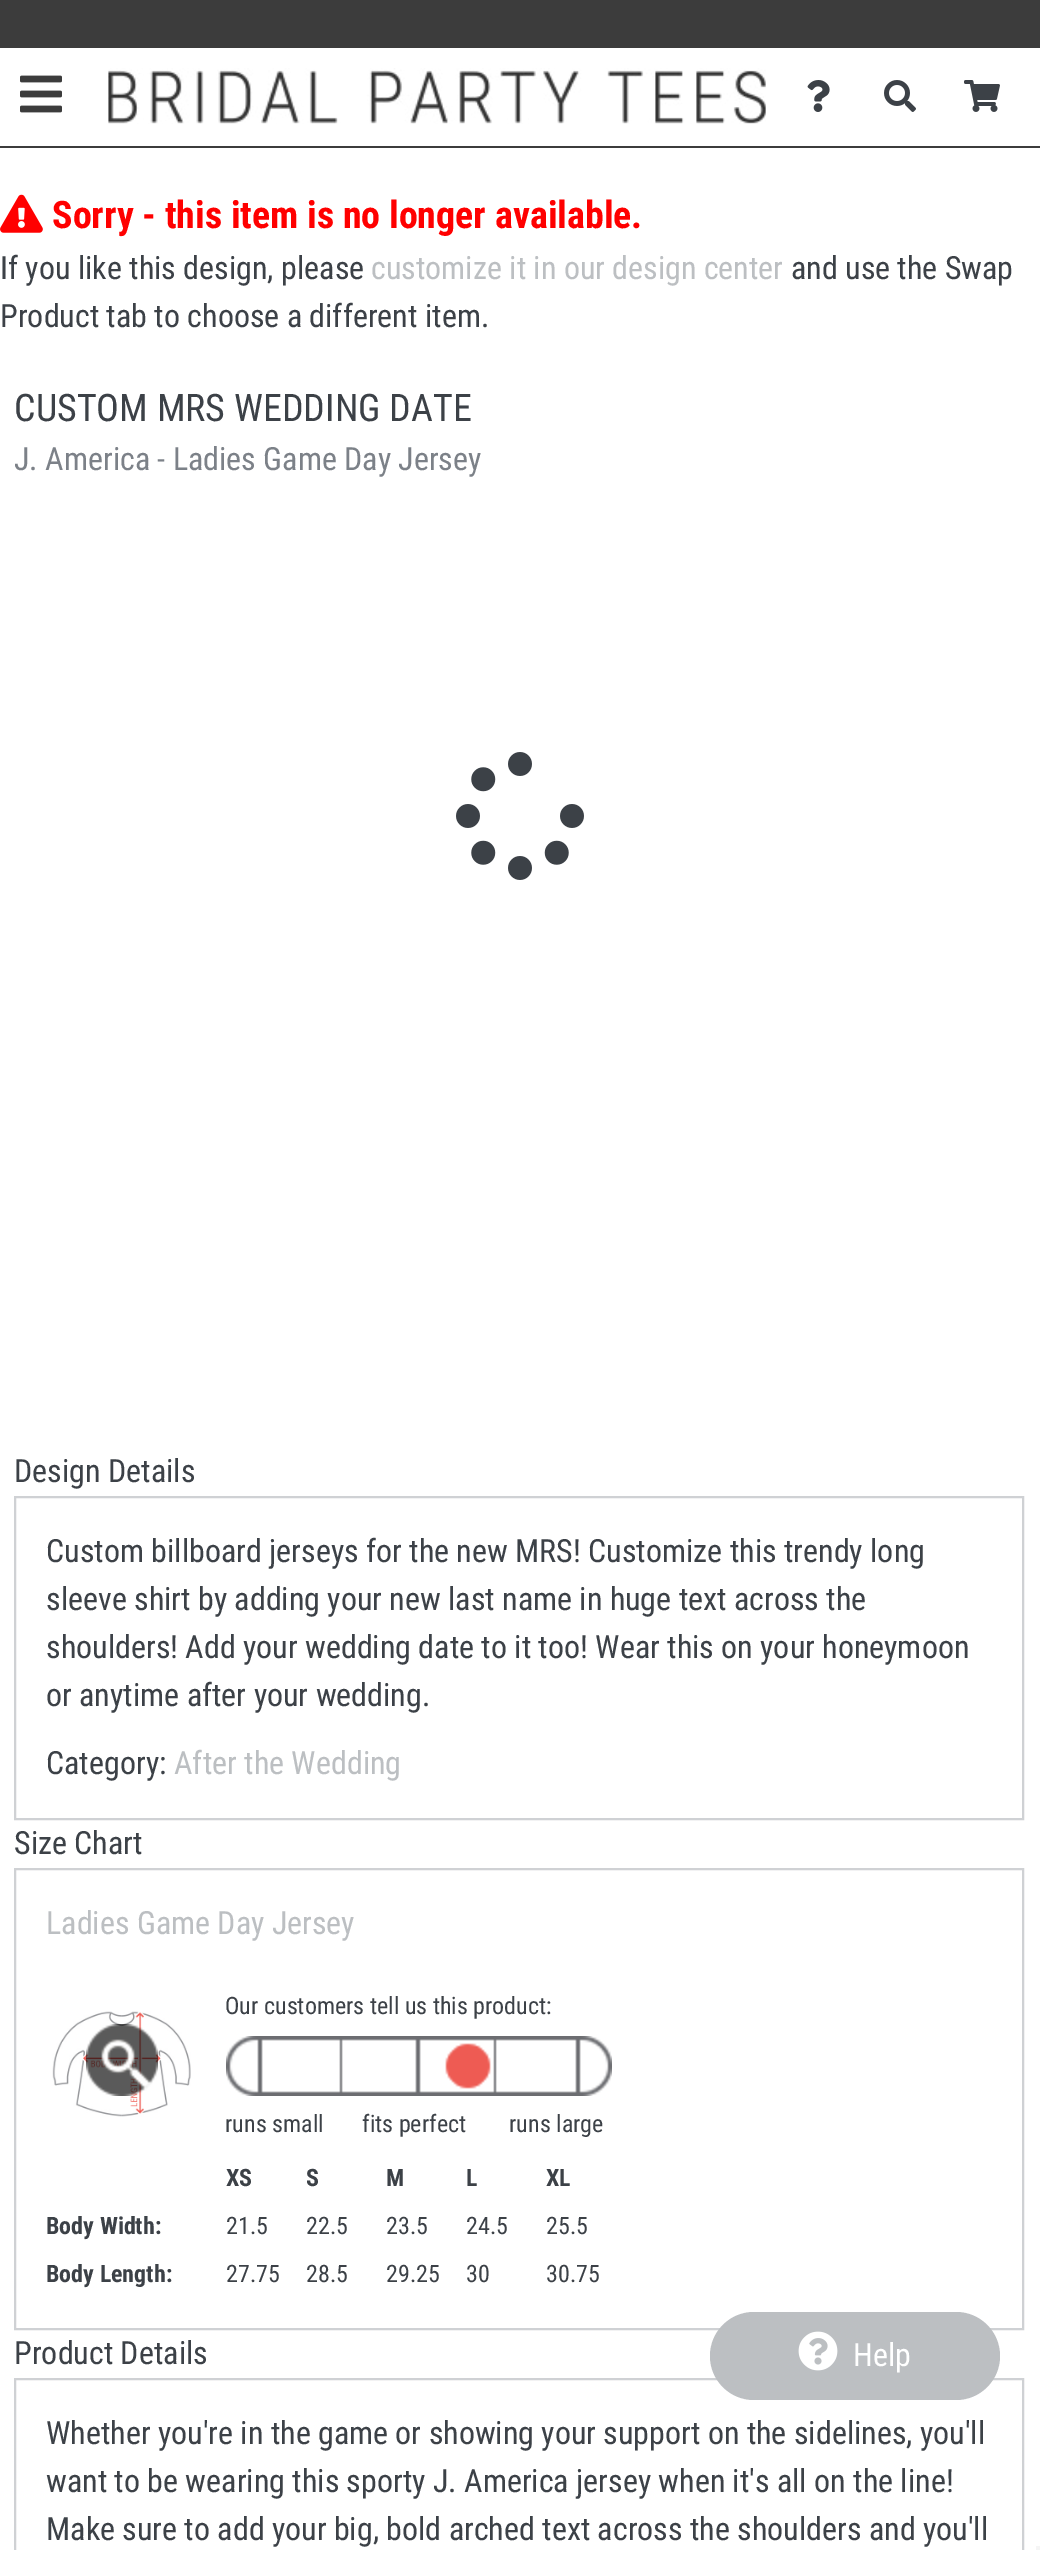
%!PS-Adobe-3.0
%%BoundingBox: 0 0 1040 2550
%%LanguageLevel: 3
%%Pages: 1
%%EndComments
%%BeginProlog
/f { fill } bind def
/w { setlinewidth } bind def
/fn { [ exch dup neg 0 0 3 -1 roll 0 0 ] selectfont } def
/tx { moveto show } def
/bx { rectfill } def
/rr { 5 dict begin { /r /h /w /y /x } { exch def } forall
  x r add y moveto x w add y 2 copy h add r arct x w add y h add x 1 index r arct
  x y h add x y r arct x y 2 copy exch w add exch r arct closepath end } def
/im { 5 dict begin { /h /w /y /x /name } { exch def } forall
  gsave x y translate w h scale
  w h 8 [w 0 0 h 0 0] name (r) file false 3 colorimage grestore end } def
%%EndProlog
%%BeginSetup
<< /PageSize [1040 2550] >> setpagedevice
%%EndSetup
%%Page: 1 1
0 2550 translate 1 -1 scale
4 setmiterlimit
1 setgray
0 0 1040 2550 bx
0.235 setgray
0 0 1040 48 bx
0 146 1040 2 bx
(image0.raw) 20 75 42 38 im
(image1.raw) 108 68 658 56 im
(image2.raw) 807 80 23 32 im
(image3.raw) 884 80 32 32 im
(image4.raw) 964 80 36 32 im
(image5.raw) 0 194 43 39 im
/RobotoCondensed-Bold 38 fn
1 0 0 setrgbcolor
(Sorry - this item is no longer available.) 52 228 tx
/RobotoCondensed-Regular 32 fn
0.235 0.255 0.278 setrgbcolor
(If you like this design, please) 0 279 tx
0.737 0.749 0.761 setrgbcolor
(customize it in our design center) 371 279 tx
0.235 0.255 0.278 setrgbcolor
(and use the Swap) 791 279 tx
(Product tab to choose a different item.) 0 327 tx
/RobotoCondensed-Regular 38 fn
(CUSTOM MRS WEDDING DATE) 14 421 tx
/RobotoCondensed-Regular 32 fn
0.486 0.506 0.533 setrgbcolor
(J. America - Ladies Game Day Jersey) 14 470 tx
(image6.raw) 456 752 128 128 im
0.235 0.255 0.278 setrgbcolor
(Design Details) 14 1482 tx
0.812 0.82 0.831 setrgbcolor
2 w
15 1497 1008 322 rectstroke
0.235 0.255 0.278 setrgbcolor
(Custom billboard jerseys for the new MRS! Customize this trendy long) 46 1562 tx
(sleeve shirt by adding your new last name in huge text across the) 46 1610 tx
(shoulders! Add your wedding date to it too! Wear this on your honeymoon) 46 1658 tx
(or anytime after your wedding.) 46 1706 tx
(Category:) 46 1774 tx
0.737 0.749 0.761 setrgbcolor
(After the Wedding) 174 1774 tx
0.235 0.255 0.278 setrgbcolor
(Size Chart) 14 1854 tx
0.812 0.82 0.831 setrgbcolor
15 1869 1008 460 rectstroke
0.737 0.749 0.761 setrgbcolor
(Ladies Game Day Jersey) 46 1934 tx
(image7.raw) 52 2011 139 106 im
(image8.raw) 86 2024 72 72 im
/RobotoCondensed-Regular 24 fn
0.235 0.255 0.278 setrgbcolor
(Our customers tell us this product:) 225 2014 tx
(image9.raw) 226 2036 386 60 im
(runs small) 225 2132 tx
(fits perfect) 362 2132 tx
(runs large) 509 2132 tx
/RobotoCondensed-Bold 24 fn
(XS) 226 2186 tx
(S) 306 2186 tx
(M) 386 2186 tx
(L) 466 2186 tx
(XL) 546 2186 tx
(Body Width:) 46 2234 tx
/RobotoCondensed-Regular 24 fn
(21.5) 226 2234 tx
(22.5) 306 2234 tx
(23.5) 386 2234 tx
(24.5) 466 2234 tx
(25.5) 546 2234 tx
/RobotoCondensed-Bold 24 fn
(Body Length:) 46 2282 tx
/RobotoCondensed-Regular 24 fn
(27.75) 226 2282 tx
(28.5) 306 2282 tx
(29.25) 386 2282 tx
(30) 466 2282 tx
(30.75) 546 2282 tx
/RobotoCondensed-Regular 32 fn
(Product Details) 14 2364 tx
0.812 0.82 0.831 setrgbcolor
15 2379 1008 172 rectstroke
0.235 0.255 0.278 setrgbcolor
(Whether you're in the game or showing your support on the sidelines, you'll) 46 2444 tx
(want to be wearing this sporty J. America jersey when it's all on the line!) 46 2492 tx
(Make sure to add your big, bold arched text across the shoulders and you'll) 46 2540 tx
0.737 0.749 0.761 setrgbcolor
710 2312 290 88 44 rr f
(image10.raw) 798 2331 40 40 im
1 setgray
(Help) 853 2366 tx
0.961 setgray
1036 2546 4 4 bx
showpage
%%EOF
